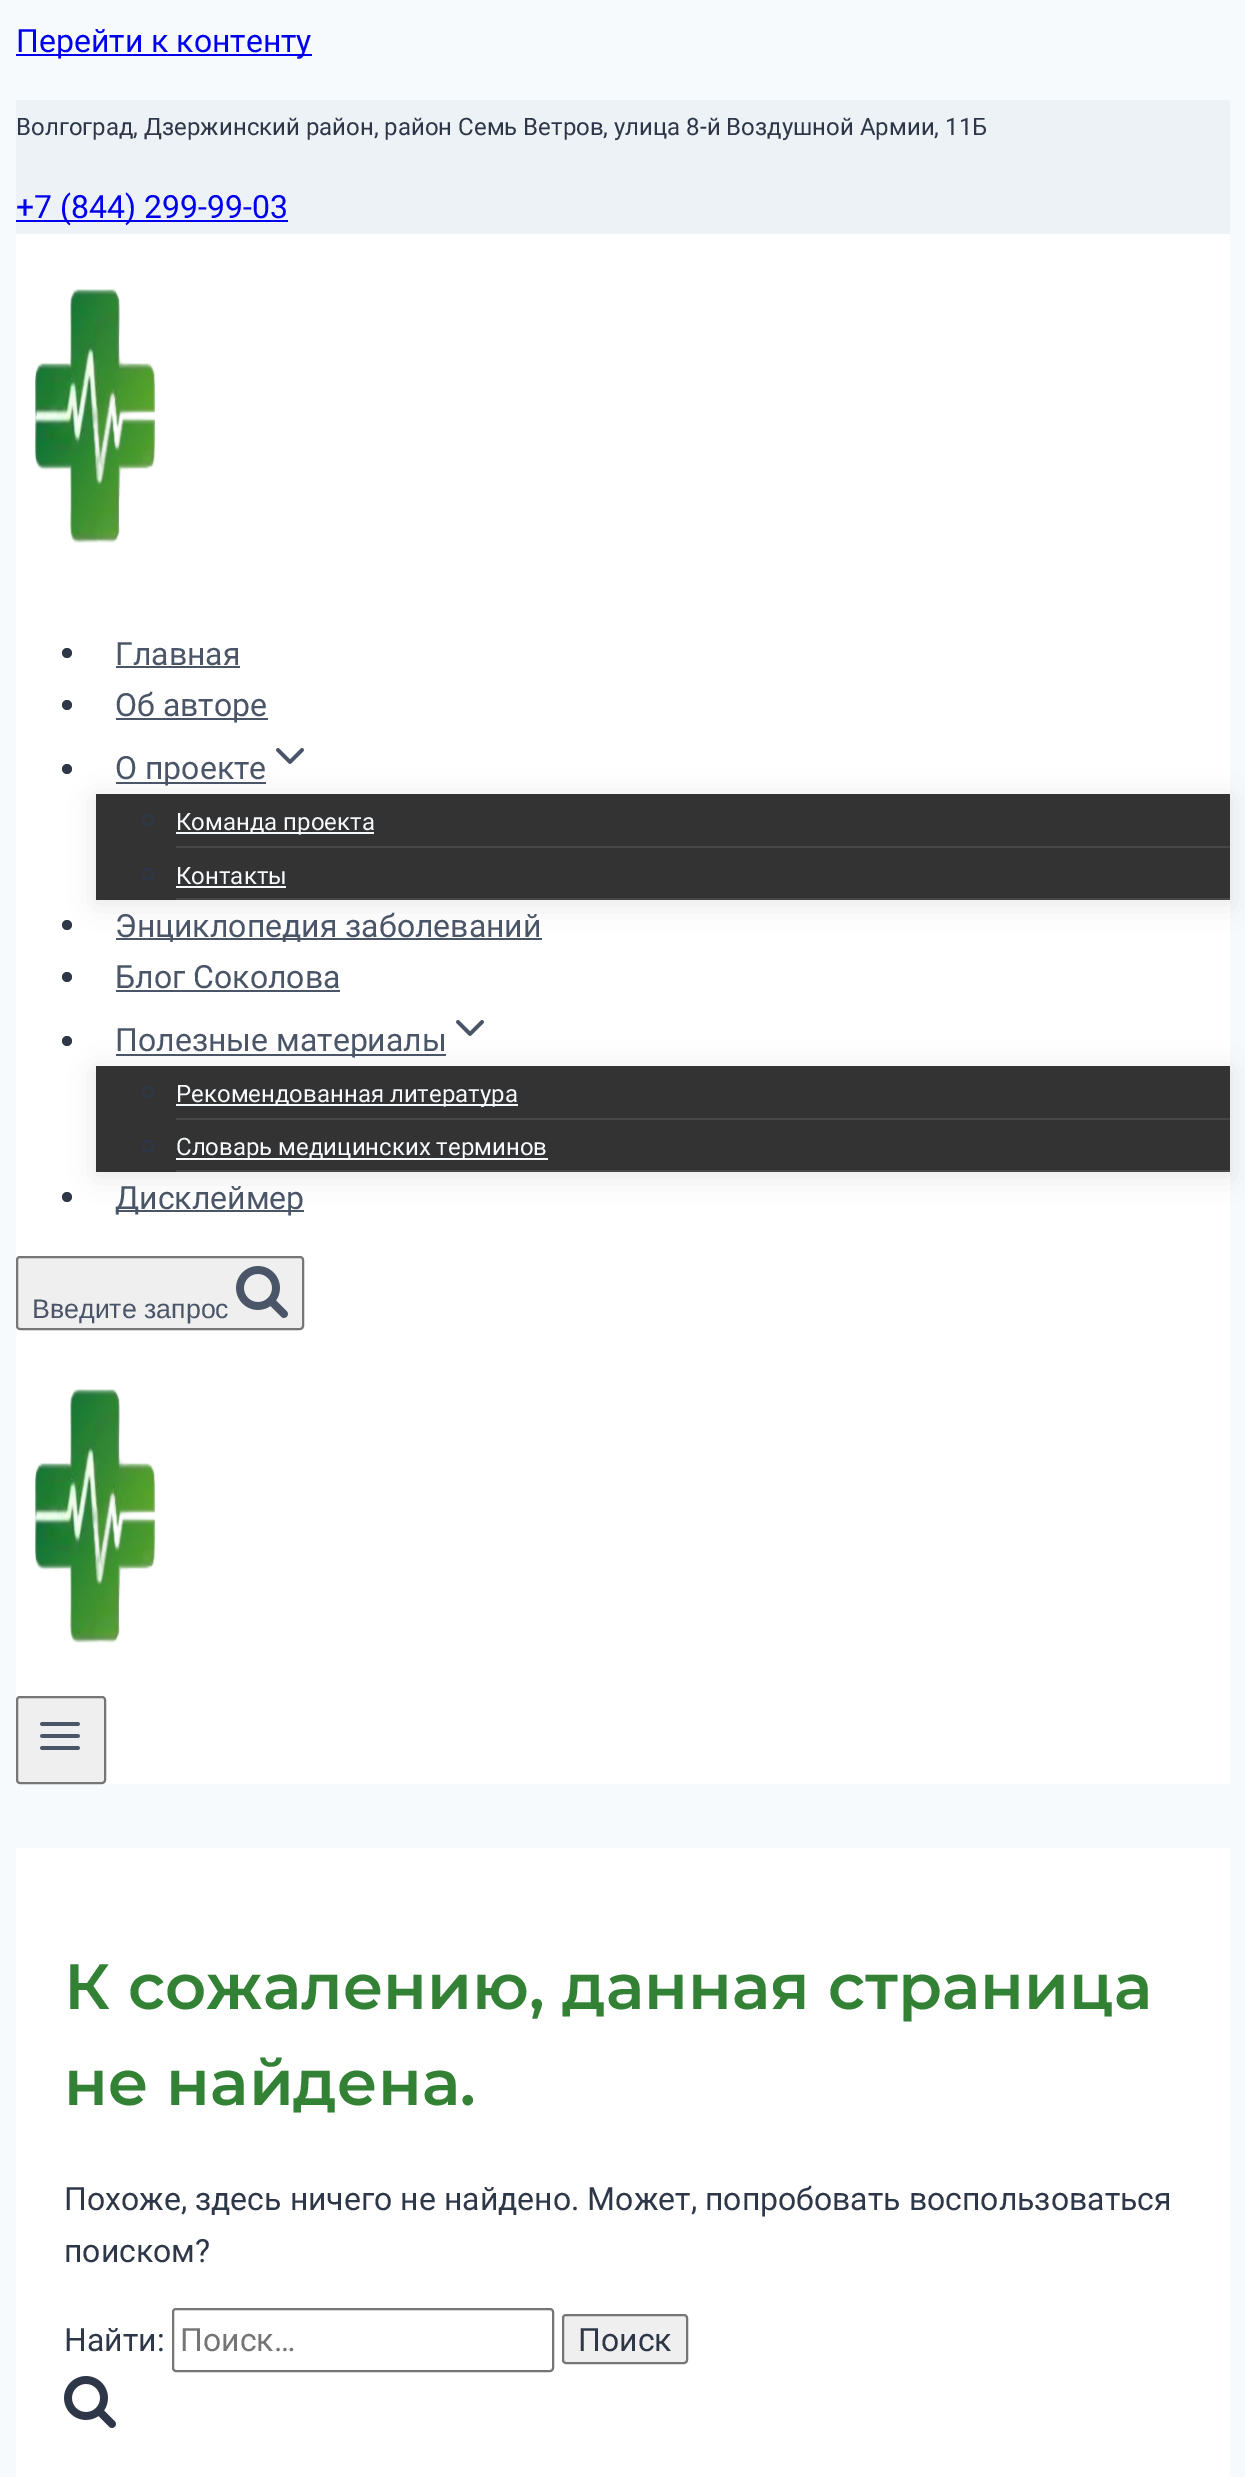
%!PS-Adobe-3.0
%%BoundingBox: 0 0 1245 2477
%%LanguageLevel: 3
%%Pages: 1
%%EndComments
%%BeginProlog
/f { fill } bind def
/S { stroke } bind def
/q { gsave } bind def
/Q { grestore } bind def
/w { setlinewidth } bind def
/fn { [ exch dup neg 0 0 3 -1 roll 0 0 ] selectfont } def
/tx { moveto show } def
/bx { rectfill } def
/al { dup .setfillconstantalpha .setstrokeconstantalpha } def
/ci { newpath 0 360 arc closepath } def
/rr { 5 dict begin { /r /h /w /y /x } { exch def } forall
  x r add y moveto x w add y 2 copy h add r arct x w add y h add x 1 index r arct
  x y h add x y r arct x y 2 copy exch w add exch r arct closepath end } def
/sh { 12 dict begin { /a /b /q /h /w /y /x } { exch def } forall gsave /was 0 def
  9 -2 -9 { dup b mul 4 div /e exch def 1 sub .425 mul 2.718 exch exp 1 add a .99 .min exch div /now exch def
    1 1 now sub 1 was sub div sub al /was now def
    w h .min e 2 mul add 0 gt { x e sub y e sub w e 2 mul add h e 2 mul add
      q e add b .6 mul add w h .min 2 div e add .min 0 .max rr fill } if } for grestore end } def
/im { 5 dict begin { /h /w /y /x /name } { exch def } forall
  gsave x y translate w h scale
  w h 8 [w 0 0 h 0 0] name (r) file false 3 colorimage grestore end } def
%%EndProlog
%%BeginSetup
<< /PageSize [1245 2477] /PageUsesTransparency true >> setpagedevice
%%EndSetup
%%Page: 1 1
0 .pushpdf14devicefilter
0 2477 translate 1 -1 scale
4 setmiterlimit
0.969 0.98 0.988 setrgbcolor
0 0 1245 2477 bx
0 0 0.933 setrgbcolor
16 54 296 2 bx
/Roboto-Regular 32 fn
(Перейти к контенту) 16 52 tx
1 setgray
16 234 1214 1550 bx
0.929 0.949 0.969 setrgbcolor
16 100 1214 134 bx
/Roboto-Regular 24 fn
0.176 0.216 0.282 setrgbcolor
(Волгоград, Дзержинский район, район Семь Ветров, улица 8-й Воздушной Армии, 11Б) 16 135 tx
0 0 0.933 setrgbcolor
16 220 272 2 bx
/Roboto-Regular 32 fn
(+7 \(844\) 299-99-03) 16 218 tx
(image0.raw) 34 289 122 254 im
0.176 0.216 0.282 setrgbcolor
67 653 5 ci f
0.29 0.333 0.408 setrgbcolor
(Главная) 115 665 tx
116 666 124 2 bx
0.176 0.216 0.282 setrgbcolor
67 705 5 ci f
0.29 0.333 0.408 setrgbcolor
116 718 152 2 bx
(Об авторе) 115 716 tx
0 setgray
96 798 1134 106 0 13 0.1 sh
0.176 0.216 0.282 setrgbcolor
67 769 5 ci f
0.29 0.333 0.408 setrgbcolor
116 782 150 2 bx
(О проекте) 115 779 tx
(image1.raw) 276 748 28 16 im
0.2 setgray
96 794 1134 106 bx
0.278 setgray
176 846 1054 2 bx
0.176 0.216 0.282 setrgbcolor
2 w
148 820 5 ci S
0.969 0.98 0.988 setrgbcolor
176 832 198 2 bx
/Roboto-Regular 24 fn
(Команда проекта) 176 830 tx
0.278 setgray
176 898 1054 2 bx
0.176 0.216 0.282 setrgbcolor
148 874 5 ci S
0.969 0.98 0.988 setrgbcolor
(Контакты) 176 884 tx
176 886 110 2 bx
0.176 0.216 0.282 setrgbcolor
67 925 5 ci f
0.29 0.333 0.408 setrgbcolor
116 938 426 2 bx
/Roboto-Regular 32 fn
(Энциклопедия заболеваний) 115 937 tx
0.176 0.216 0.282 setrgbcolor
67 977 5 ci f
0.29 0.333 0.408 setrgbcolor
(Блог Соколова) 115 988 tx
116 990 224 2 bx
0 setgray
96 1070 1134 106 0 13 0.1 sh
0.176 0.216 0.282 setrgbcolor
67 1041 5 ci f
0.29 0.333 0.408 setrgbcolor
116 1054 330 2 bx
(Полезные материалы) 115 1051 tx
(image1.raw) 456 1020 28 16 im
0.2 setgray
96 1066 1134 106 bx
0.278 setgray
176 1118 1054 2 bx
0.176 0.216 0.282 setrgbcolor
148 1092 5 ci S
0.969 0.98 0.988 setrgbcolor
176 1104 342 2 bx
/Roboto-Regular 24 fn
(Рекомендованная литература) 176 1102 tx
0.278 setgray
176 1170 1054 2 bx
0.176 0.216 0.282 setrgbcolor
148 1146 5 ci S
0.969 0.98 0.988 setrgbcolor
176 1158 372 2 bx
(Словарь медицинских терминов) 176 1155 tx
0.176 0.216 0.282 setrgbcolor
67 1197 5 ci f
0.29 0.333 0.408 setrgbcolor
116 1210 188 2 bx
/Roboto-Regular 32 fn
(Дисклеймер) 115 1209 tx
0.937 setgray
17 1257 286 72 3 rr q f Q
0.463 setgray
S
/LiberationSans-Regular 26.75 fn
0.29 0.333 0.408 setrgbcolor
(Введите запрос) 32 1318 tx
(image2.raw) 236 1266 52 52 im
(image0.raw) 34 1389 122 254 im
0.937 setgray
17 1697 88 86 3 rr q f Q
0.463 setgray
S
(image3.raw) 40 1722 40 28 im
1 setgray
16 1848 1214 629 bx
/Montserrat-Thin 64 fn
0.196 0.506 0.208 setrgbcolor
(К сожалению, данная страница) 64 2009 tx
(не найдена.) 64 2105 tx
/Roboto-Regular 32 fn
0.176 0.216 0.282 setrgbcolor
(Похоже, здесь ничего не найдено. Может, попробовать воспользоваться) 64 2210 tx
(поиском?) 64 2262 tx
(Найти:) 64 2351 tx
0.463 setgray
173 2309 380 62 3 rr S
0.459 setgray
(Поиск…) 180 2351 tx
0.937 setgray
563 2315 124 48 3 rr q f Q
0.463 setgray
S
0.176 0.216 0.282 setrgbcolor
(Поиск) 578 2351 tx
(image4.raw) 64 2376 52 52 im
.poppdf14devicefilter showpage
%%EOF
